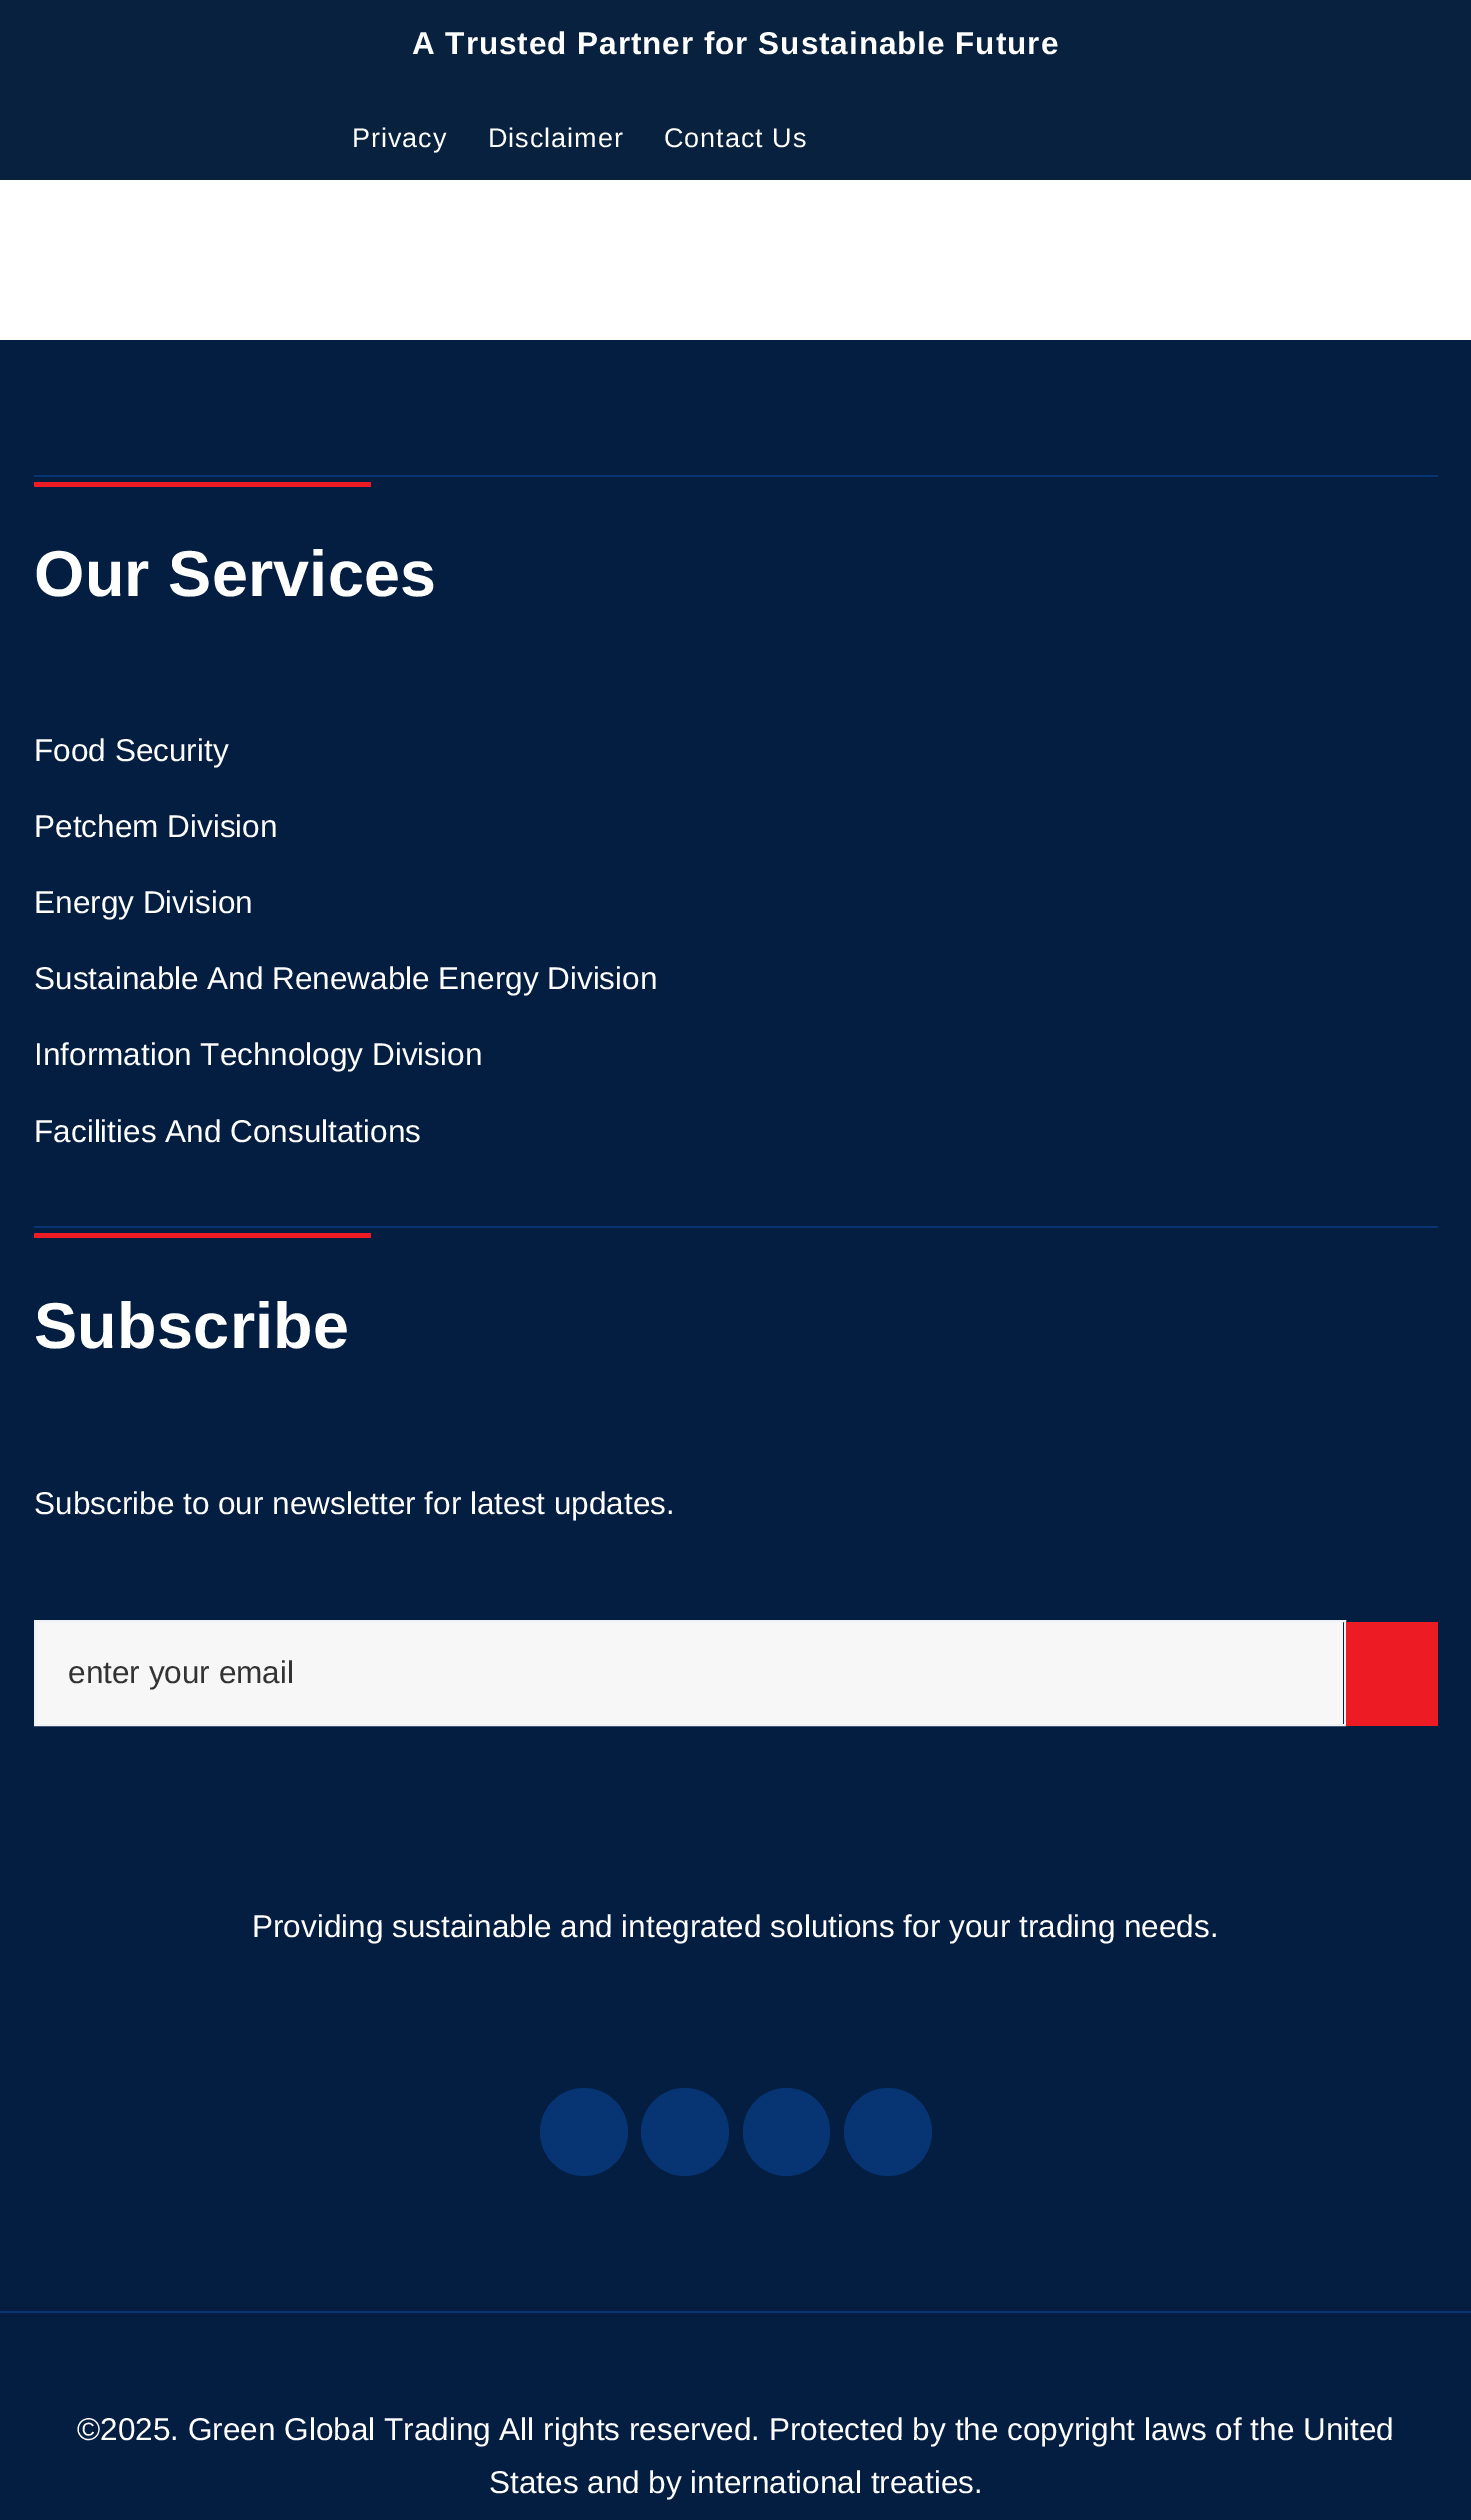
%!PS-Adobe-3.0
%%BoundingBox: 0 0 1471 2520
%%LanguageLevel: 3
%%Pages: 1
%%EndComments
%%BeginProlog
/m { moveto } bind def
/f { fill } bind def
/w { setlinewidth } bind def
/fn { [ exch dup neg 0 0 3 -1 roll 0 0 ] selectfont } def
/tx { moveto show } def
/bx { rectfill } def
/ci { newpath 0 360 arc closepath } def
/rr { 5 dict begin { /r /h /w /y /x } { exch def } forall
  x r add y moveto x w add y 2 copy h add r arct x w add y h add x 1 index r arct
  x y h add x y r arct x y 2 copy exch w add exch r arct closepath end } def
%%EndProlog
%%BeginSetup
<< /PageSize [1471 2520] >> setpagedevice
%%EndSetup
%%Page: 1 1
0 2520 translate 1 -1 scale
4 setmiterlimit
1 setgray
0 0 1471 2520 bx
0.031 0.129 0.243 setrgbcolor
0 0 1471 180 bx
/LiberationSans-Bold 31.5 fn
1 setgray
412 54 m 0.95 0 (A Trusted Partner for Sustainable Future) ashow
/LiberationSans-Regular 27 fn
352 147 m 0.95 0 (Privacy) ashow
488 147 m 0.95 0 (Disclaimer) ashow
664 147 m 0.95 0 (Contact Us) ashow
0.016 0.118 0.259 setrgbcolor
0 340 1471 1971 bx
0.027 0.204 0.447 setrgbcolor
34 475 1404 2 bx
0.929 0.11 0.141 setrgbcolor
34 482 337 5 bx
/LiberationSans-Bold 64.75 fn
1 setgray
34 596 m 0.25 0 (Our Services) ashow
/LiberationSans-Regular 31.5 fn
(Food Security) 34 761 tx
(Petchem Division) 34 837 tx
(Energy Division) 34 913 tx
(Sustainable And Renewable Energy Division) 34 989 tx
(Information Technology Division) 34 1065 tx
(Facilities And Consultations) 34 1142 tx
0.027 0.204 0.447 setrgbcolor
34 1226 1404 2 bx
0.929 0.11 0.141 setrgbcolor
34 1233 337 5 bx
/LiberationSans-Bold 64.75 fn
1 setgray
34 1348 m 0.25 0 (Subscribe) ashow
/LiberationSans-Regular 31.5 fn
(Subscribe to our newsletter for latest updates.) 34 1514 tx
0.969 setgray
36 1622 1307 102 bx
0.937 0.953 0.965 setrgbcolor
2 w
35 1621 1310 104 rectstroke
0.2 setgray
(enter your email) 68 1683 tx
0.929 0.11 0.141 setrgbcolor
1346 1622 92 104 bx
1 setgray
(Providing sustainable and integrated solutions for your trading needs.) 252 1937 tx
0.027 0.204 0.447 setrgbcolor
584 2132 44 ci f
685 2132 44 ci f
743 2088 87 88 43.5 rr f
888 2132 44 ci f
0.016 0.118 0.259 setrgbcolor
0 2313 1471 207 bx
0.027 0.204 0.447 setrgbcolor
0 2311 1471 2 bx
1 setgray
(©2025. Green Global Trading All rights reserved. Protected by the copyright laws of the United) 77 2440 tx
(States and by international treaties.) 489 2493 tx
showpage
%%EOF
